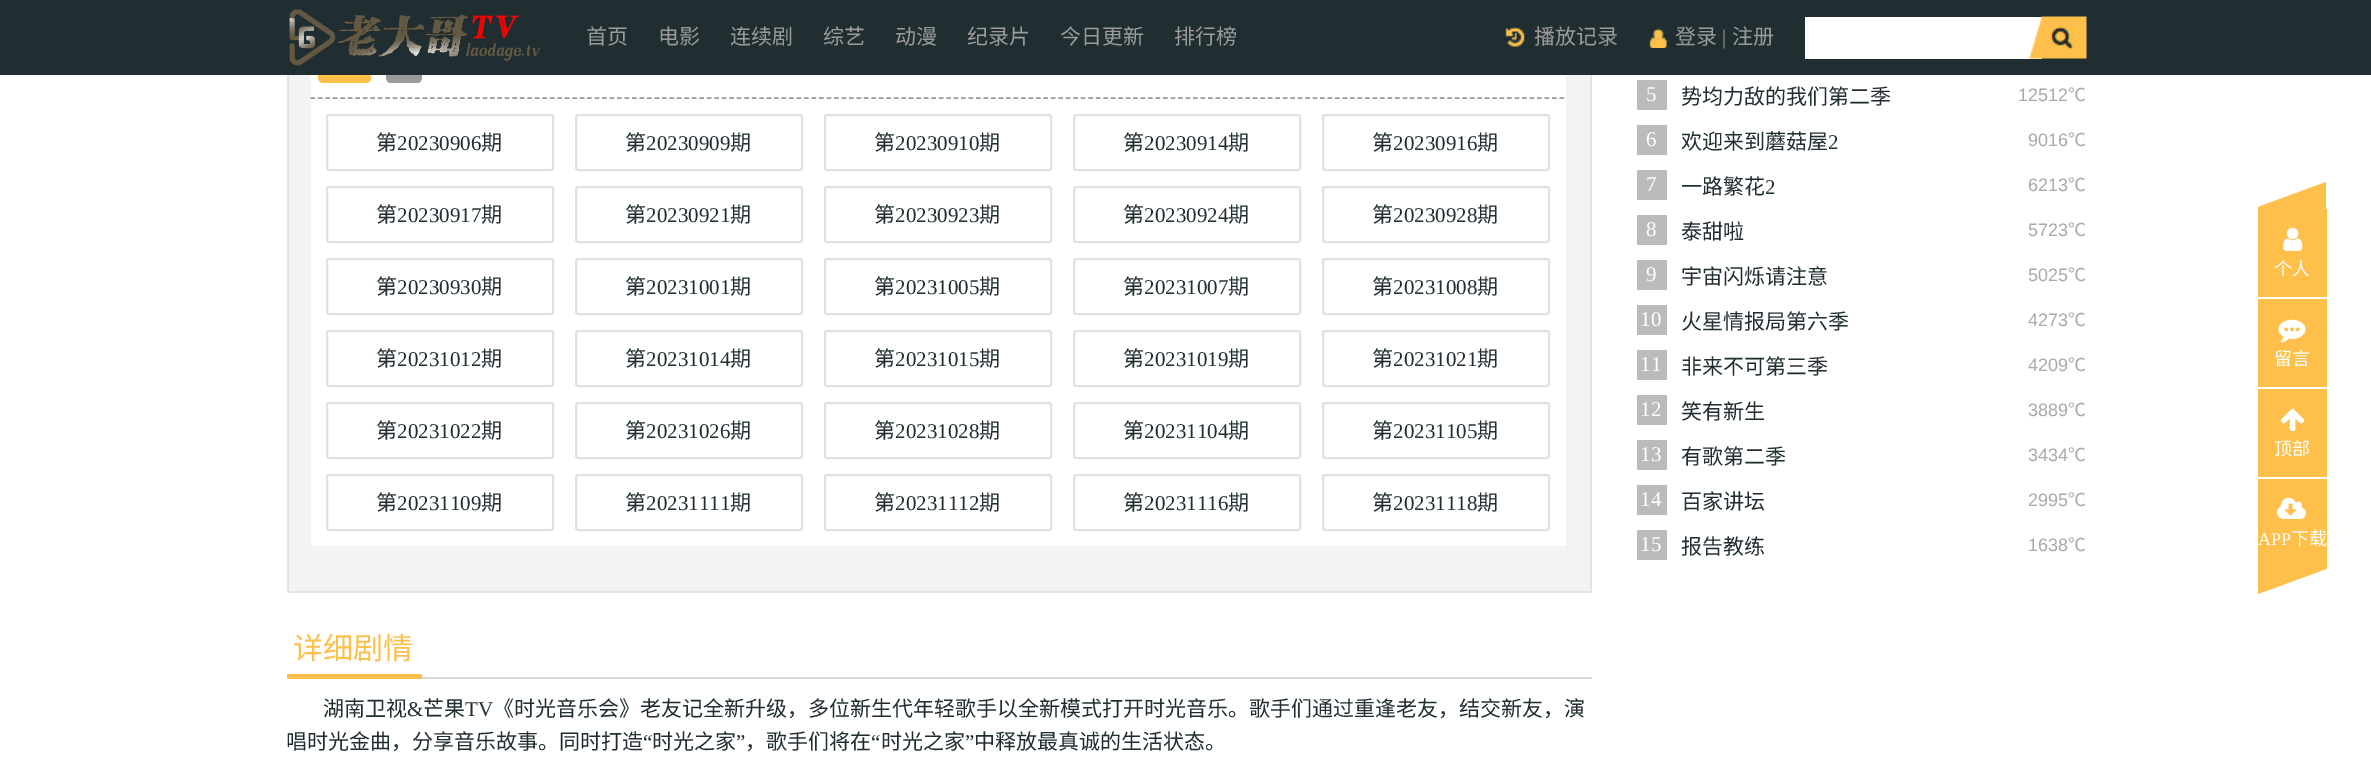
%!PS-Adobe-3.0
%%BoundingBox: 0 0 2371 775
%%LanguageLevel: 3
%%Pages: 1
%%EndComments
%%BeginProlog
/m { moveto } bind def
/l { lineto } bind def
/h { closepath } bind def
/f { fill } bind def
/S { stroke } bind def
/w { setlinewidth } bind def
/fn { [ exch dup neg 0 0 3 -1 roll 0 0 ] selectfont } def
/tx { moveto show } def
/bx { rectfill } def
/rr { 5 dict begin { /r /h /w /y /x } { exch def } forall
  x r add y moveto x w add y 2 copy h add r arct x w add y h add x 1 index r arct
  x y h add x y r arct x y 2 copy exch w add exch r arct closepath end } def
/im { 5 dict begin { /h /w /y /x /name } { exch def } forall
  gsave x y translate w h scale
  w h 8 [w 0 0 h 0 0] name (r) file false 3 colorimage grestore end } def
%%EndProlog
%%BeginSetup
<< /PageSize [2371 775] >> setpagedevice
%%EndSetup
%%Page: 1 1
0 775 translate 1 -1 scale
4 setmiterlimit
1 setgray
0 0 2371 775 bx
0.953 setgray
289 75 1301 516 bx
1 setgray
311 75 1255 471 bx
0.996 0.749 0.294 setrgbcolor
318 47 53 36 5 rr f
0.6 setgray
386 47 36 36 5 rr f
0.125 0.18 0.192 setrgbcolor
0 0 2371 75 bx
(image0.raw) 289 9 252 57 im
/NotoSansCJKSC-Regular 21 fn
0.608 setgray
(首页) 586 44 tx
(电影) 658 44 tx
(连续剧) 730 44 tx
(综艺) 823 44 tx
(动漫) 895 44 tx
(纪录片) 967 44 tx
(今日更新) 1060 44 tx
(排行榜) 1174 44 tx
(image1.raw) 1505 27 20 20 im
(播放记录) 1534 44 tx
(image2.raw) 1649 28 18 20 im
(登录) 1675 44 tx
/LiberationSerif-Regular 21 fn
(|) 1722 44 tx
/NotoSansCJKSC-Regular 21 fn
(注册) 1732 44 tx
1 setgray
1805 17 237 42 bx
(image3.raw) 2029 16 58 43 im
0.89 setgray
1590 75 2 518 bx
287 591 1305 2 bx
287 75 2 518 bx
0.6 setgray
1.5 w
[4.5 2.98] 0 setdash
310.5 98 m 1566 98 l S
0.882 setgray
2 w
[] 0 setdash
327 115 226 55 2 rr S
0.125 0.18 0.192 setrgbcolor
(第) 376 150 tx
/LiberationSerif-Regular 21 fn
(20230906) 397 150 tx
/NotoSansCJKSC-Regular 21 fn
(期) 481 150 tx
0.882 setgray
576 115 226 55 2 rr S
0.125 0.18 0.192 setrgbcolor
(第) 625 150 tx
/LiberationSerif-Regular 21 fn
(20230909) 646 150 tx
/NotoSansCJKSC-Regular 21 fn
(期) 730 150 tx
0.882 setgray
825 115 226 55 2 rr S
0.125 0.18 0.192 setrgbcolor
(第) 874 150 tx
/LiberationSerif-Regular 21 fn
(20230910) 895 150 tx
/NotoSansCJKSC-Regular 21 fn
(期) 979 150 tx
0.882 setgray
1074 115 226 55 2 rr S
0.125 0.18 0.192 setrgbcolor
(第) 1123 150 tx
/LiberationSerif-Regular 21 fn
(20230914) 1144 150 tx
/NotoSansCJKSC-Regular 21 fn
(期) 1228 150 tx
0.882 setgray
1323 115 226 55 2 rr S
0.125 0.18 0.192 setrgbcolor
(第) 1372 150 tx
/LiberationSerif-Regular 21 fn
(20230916) 1393 150 tx
/NotoSansCJKSC-Regular 21 fn
(期) 1477 150 tx
0.882 setgray
327 187 226 55 2 rr S
0.125 0.18 0.192 setrgbcolor
(第) 376 222 tx
/LiberationSerif-Regular 21 fn
(20230917) 397 222 tx
/NotoSansCJKSC-Regular 21 fn
(期) 481 222 tx
0.882 setgray
576 187 226 55 2 rr S
0.125 0.18 0.192 setrgbcolor
(第) 625 222 tx
/LiberationSerif-Regular 21 fn
(20230921) 646 222 tx
/NotoSansCJKSC-Regular 21 fn
(期) 730 222 tx
0.882 setgray
825 187 226 55 2 rr S
0.125 0.18 0.192 setrgbcolor
(第) 874 222 tx
/LiberationSerif-Regular 21 fn
(20230923) 895 222 tx
/NotoSansCJKSC-Regular 21 fn
(期) 979 222 tx
0.882 setgray
1074 187 226 55 2 rr S
0.125 0.18 0.192 setrgbcolor
(第) 1123 222 tx
/LiberationSerif-Regular 21 fn
(20230924) 1144 222 tx
/NotoSansCJKSC-Regular 21 fn
(期) 1228 222 tx
0.882 setgray
1323 187 226 55 2 rr S
0.125 0.18 0.192 setrgbcolor
(第) 1372 222 tx
/LiberationSerif-Regular 21 fn
(20230928) 1393 222 tx
/NotoSansCJKSC-Regular 21 fn
(期) 1477 222 tx
0.882 setgray
327 259 226 55 2 rr S
0.125 0.18 0.192 setrgbcolor
(第) 376 294 tx
/LiberationSerif-Regular 21 fn
(20230930) 397 294 tx
/NotoSansCJKSC-Regular 21 fn
(期) 481 294 tx
0.882 setgray
576 259 226 55 2 rr S
0.125 0.18 0.192 setrgbcolor
(第) 625 294 tx
/LiberationSerif-Regular 21 fn
(20231001) 646 294 tx
/NotoSansCJKSC-Regular 21 fn
(期) 730 294 tx
0.882 setgray
825 259 226 55 2 rr S
0.125 0.18 0.192 setrgbcolor
(第) 874 294 tx
/LiberationSerif-Regular 21 fn
(20231005) 895 294 tx
/NotoSansCJKSC-Regular 21 fn
(期) 979 294 tx
0.882 setgray
1074 259 226 55 2 rr S
0.125 0.18 0.192 setrgbcolor
(第) 1123 294 tx
/LiberationSerif-Regular 21 fn
(20231007) 1144 294 tx
/NotoSansCJKSC-Regular 21 fn
(期) 1228 294 tx
0.882 setgray
1323 259 226 55 2 rr S
0.125 0.18 0.192 setrgbcolor
(第) 1372 294 tx
/LiberationSerif-Regular 21 fn
(20231008) 1393 294 tx
/NotoSansCJKSC-Regular 21 fn
(期) 1477 294 tx
0.882 setgray
327 331 226 55 2 rr S
0.125 0.18 0.192 setrgbcolor
(第) 376 366 tx
/LiberationSerif-Regular 21 fn
(20231012) 397 366 tx
/NotoSansCJKSC-Regular 21 fn
(期) 481 366 tx
0.882 setgray
576 331 226 55 2 rr S
0.125 0.18 0.192 setrgbcolor
(第) 625 366 tx
/LiberationSerif-Regular 21 fn
(20231014) 646 366 tx
/NotoSansCJKSC-Regular 21 fn
(期) 730 366 tx
0.882 setgray
825 331 226 55 2 rr S
0.125 0.18 0.192 setrgbcolor
(第) 874 366 tx
/LiberationSerif-Regular 21 fn
(20231015) 895 366 tx
/NotoSansCJKSC-Regular 21 fn
(期) 979 366 tx
0.882 setgray
1074 331 226 55 2 rr S
0.125 0.18 0.192 setrgbcolor
(第) 1123 366 tx
/LiberationSerif-Regular 21 fn
(20231019) 1144 366 tx
/NotoSansCJKSC-Regular 21 fn
(期) 1228 366 tx
0.882 setgray
1323 331 226 55 2 rr S
0.125 0.18 0.192 setrgbcolor
(第) 1372 366 tx
/LiberationSerif-Regular 21 fn
(20231021) 1393 366 tx
/NotoSansCJKSC-Regular 21 fn
(期) 1477 366 tx
0.882 setgray
327 403 226 55 2 rr S
0.125 0.18 0.192 setrgbcolor
(第) 376 438 tx
/LiberationSerif-Regular 21 fn
(20231022) 397 438 tx
/NotoSansCJKSC-Regular 21 fn
(期) 481 438 tx
0.882 setgray
576 403 226 55 2 rr S
0.125 0.18 0.192 setrgbcolor
(第) 625 438 tx
/LiberationSerif-Regular 21 fn
(20231026) 646 438 tx
/NotoSansCJKSC-Regular 21 fn
(期) 730 438 tx
0.882 setgray
825 403 226 55 2 rr S
0.125 0.18 0.192 setrgbcolor
(第) 874 438 tx
/LiberationSerif-Regular 21 fn
(20231028) 895 438 tx
/NotoSansCJKSC-Regular 21 fn
(期) 979 438 tx
0.882 setgray
1074 403 226 55 2 rr S
0.125 0.18 0.192 setrgbcolor
(第) 1123 438 tx
/LiberationSerif-Regular 21 fn
(20231104) 1144 438 tx
/NotoSansCJKSC-Regular 21 fn
(期) 1228 438 tx
0.882 setgray
1323 403 226 55 2 rr S
0.125 0.18 0.192 setrgbcolor
(第) 1372 438 tx
/LiberationSerif-Regular 21 fn
(20231105) 1393 438 tx
/NotoSansCJKSC-Regular 21 fn
(期) 1477 438 tx
0.882 setgray
327 475 226 55 2 rr S
0.125 0.18 0.192 setrgbcolor
(第) 376 510 tx
/LiberationSerif-Regular 21 fn
(20231109) 397 510 tx
/NotoSansCJKSC-Regular 21 fn
(期) 481 510 tx
0.882 setgray
576 475 226 55 2 rr S
0.125 0.18 0.192 setrgbcolor
(第) 625 510 tx
/LiberationSerif-Regular 21 fn
(20231111) 646 510 tx
/NotoSansCJKSC-Regular 21 fn
(期) 730 510 tx
0.882 setgray
825 475 226 55 2 rr S
0.125 0.18 0.192 setrgbcolor
(第) 874 510 tx
/LiberationSerif-Regular 21 fn
(20231112) 895 510 tx
/NotoSansCJKSC-Regular 21 fn
(期) 979 510 tx
0.882 setgray
1074 475 226 55 2 rr S
0.125 0.18 0.192 setrgbcolor
(第) 1123 510 tx
/LiberationSerif-Regular 21 fn
(20231116) 1144 510 tx
/NotoSansCJKSC-Regular 21 fn
(期) 1228 510 tx
0.882 setgray
1323 475 226 55 2 rr S
0.125 0.18 0.192 setrgbcolor
(第) 1372 510 tx
/LiberationSerif-Regular 21 fn
(20231118) 1393 510 tx
/NotoSansCJKSC-Regular 21 fn
(期) 1477 510 tx
0.851 setgray
422 677 1170 2 bx
0.996 0.749 0.294 setrgbcolor
287 674 135 5 bx
/NotoSansCJKSC-Regular 30 fn
(详细剧情) 293 659 tx
/NotoSansCJKSC-Regular 21 fn
0.125 0.18 0.192 setrgbcolor
(湖南卫视) 323 716 tx
/LiberationSerif-Regular 21 fn
(&) 407 716 tx
/NotoSansCJKSC-Regular 21 fn
(芒果) 423 716 tx
/LiberationSerif-Regular 21 fn
(TV) 465 716 tx
/NotoSansCJKSC-Regular 21 fn
(《时光音乐会》老友记全新升级，多位新生代年轻歌手以全新模式打开时光音乐。歌手们通过重逢老友，结交新友，演) 493 716 tx
(唱时光金曲，分享音乐故事。同时打造) 286 749 tx
/LiberationSerif-Regular 21 fn
(“) 643 749 tx
/NotoSansCJKSC-Regular 21 fn
(时光之家) 652 749 tx
/LiberationSerif-Regular 21 fn
(”) 736 749 tx
/NotoSansCJKSC-Regular 21 fn
(，歌手们将在) 745 749 tx
/LiberationSerif-Regular 21 fn
(“) 871 749 tx
/NotoSansCJKSC-Regular 21 fn
(时光之家) 881 749 tx
/LiberationSerif-Regular 21 fn
(”) 965 749 tx
/NotoSansCJKSC-Regular 21 fn
(中释放最真诚的生活状态。) 974 749 tx
0.733 setgray
1637 80 30 30 bx
/LiberationSerif-Regular 21 fn
1 setgray
(5) 1646 101 tx
/NotoSansCJKSC-Regular 21 fn
0.125 0.18 0.192 setrgbcolor
(势均力敌的我们第二季) 1681 104 tx
/LiberationSans-Regular 18 fn
0.663 setgray
(12512) 2018 101 tx
/NotoSansCJKSC-Regular 18 fn
(℃) 2068 101 tx
0.733 setgray
1637 125 30 30 bx
/LiberationSerif-Regular 21 fn
1 setgray
(6) 1646 146 tx
/NotoSansCJKSC-Regular 21 fn
0.125 0.18 0.192 setrgbcolor
(欢迎来到蘑菇屋) 1681 149 tx
/LiberationSerif-Regular 21 fn
(2) 1828 149 tx
/LiberationSans-Regular 18 fn
0.663 setgray
(9016) 2028 146 tx
/NotoSansCJKSC-Regular 18 fn
(℃) 2068 146 tx
0.733 setgray
1637 170 30 30 bx
/LiberationSerif-Regular 21 fn
1 setgray
(7) 1646 191 tx
/NotoSansCJKSC-Regular 21 fn
0.125 0.18 0.192 setrgbcolor
(一路繁花) 1681 194 tx
/LiberationSerif-Regular 21 fn
(2) 1765 194 tx
/LiberationSans-Regular 18 fn
0.663 setgray
(6213) 2028 191 tx
/NotoSansCJKSC-Regular 18 fn
(℃) 2068 191 tx
0.733 setgray
1637 215 30 30 bx
/LiberationSerif-Regular 21 fn
1 setgray
(8) 1646 236 tx
/NotoSansCJKSC-Regular 21 fn
0.125 0.18 0.192 setrgbcolor
(泰甜啦) 1681 239 tx
/LiberationSans-Regular 18 fn
0.663 setgray
(5723) 2028 236 tx
/NotoSansCJKSC-Regular 18 fn
(℃) 2068 236 tx
0.733 setgray
1637 260 30 30 bx
/LiberationSerif-Regular 21 fn
1 setgray
(9) 1646 281 tx
/NotoSansCJKSC-Regular 21 fn
0.125 0.18 0.192 setrgbcolor
(宇宙闪烁请注意) 1681 284 tx
/LiberationSans-Regular 18 fn
0.663 setgray
(5025) 2028 281 tx
/NotoSansCJKSC-Regular 18 fn
(℃) 2068 281 tx
0.733 setgray
1637 305 30 30 bx
/LiberationSerif-Regular 21 fn
1 setgray
(10) 1640 326 tx
/NotoSansCJKSC-Regular 21 fn
0.125 0.18 0.192 setrgbcolor
(火星情报局第六季) 1681 329 tx
/LiberationSans-Regular 18 fn
0.663 setgray
(4273) 2028 326 tx
/NotoSansCJKSC-Regular 18 fn
(℃) 2068 326 tx
0.733 setgray
1637 350 30 30 bx
/LiberationSerif-Regular 21 fn
1 setgray
(11) 1640 371 tx
/NotoSansCJKSC-Regular 21 fn
0.125 0.18 0.192 setrgbcolor
(非来不可第三季) 1681 374 tx
/LiberationSans-Regular 18 fn
0.663 setgray
(4209) 2028 371 tx
/NotoSansCJKSC-Regular 18 fn
(℃) 2068 371 tx
0.733 setgray
1637 395 30 30 bx
/LiberationSerif-Regular 21 fn
1 setgray
(12) 1640 416 tx
/NotoSansCJKSC-Regular 21 fn
0.125 0.18 0.192 setrgbcolor
(笑有新生) 1681 419 tx
/LiberationSans-Regular 18 fn
0.663 setgray
(3889) 2028 416 tx
/NotoSansCJKSC-Regular 18 fn
(℃) 2068 416 tx
0.733 setgray
1637 440 30 30 bx
/LiberationSerif-Regular 21 fn
1 setgray
(13) 1640 461 tx
/NotoSansCJKSC-Regular 21 fn
0.125 0.18 0.192 setrgbcolor
(有歌第二季) 1681 464 tx
/LiberationSans-Regular 18 fn
0.663 setgray
(3434) 2028 461 tx
/NotoSansCJKSC-Regular 18 fn
(℃) 2068 461 tx
0.733 setgray
1637 485 30 30 bx
/LiberationSerif-Regular 21 fn
1 setgray
(14) 1640 506 tx
/NotoSansCJKSC-Regular 21 fn
0.125 0.18 0.192 setrgbcolor
(百家讲坛) 1681 509 tx
/LiberationSans-Regular 18 fn
0.663 setgray
(2995) 2028 506 tx
/NotoSansCJKSC-Regular 18 fn
(℃) 2068 506 tx
0.733 setgray
1637 530 30 30 bx
/LiberationSerif-Regular 21 fn
1 setgray
(15) 1640 551 tx
/NotoSansCJKSC-Regular 21 fn
0.125 0.18 0.192 setrgbcolor
(报告教练) 1681 554 tx
/LiberationSans-Regular 18 fn
0.663 setgray
(1638) 2028 551 tx
/NotoSansCJKSC-Regular 18 fn
(℃) 2068 551 tx
0.996 0.749 0.294 setrgbcolor
2326 209 1 360 bx
2258 207 m 2326 182 l 2326 569 l 2258 594 l h f
1 setgray
2258 297 69 2 bx
(image4.raw) 2283 227 20 24 im
(个人) 2274 275 tx
2258 387 69 2 bx
(image5.raw) 2278 319 28 24 im
(留言) 2274 365 tx
2258 477 69 2 bx
(image6.raw) 2280 408 25 23 im
(顶部) 2274 455 tx
(image7.raw) 2277 497 29 22 im
/LiberationSerif-Regular 18 fn
(APP) 2258 545 tx
/NotoSansCJKSC-Regular 18 fn
(下载) 2291 545 tx
showpage
%%EOF
